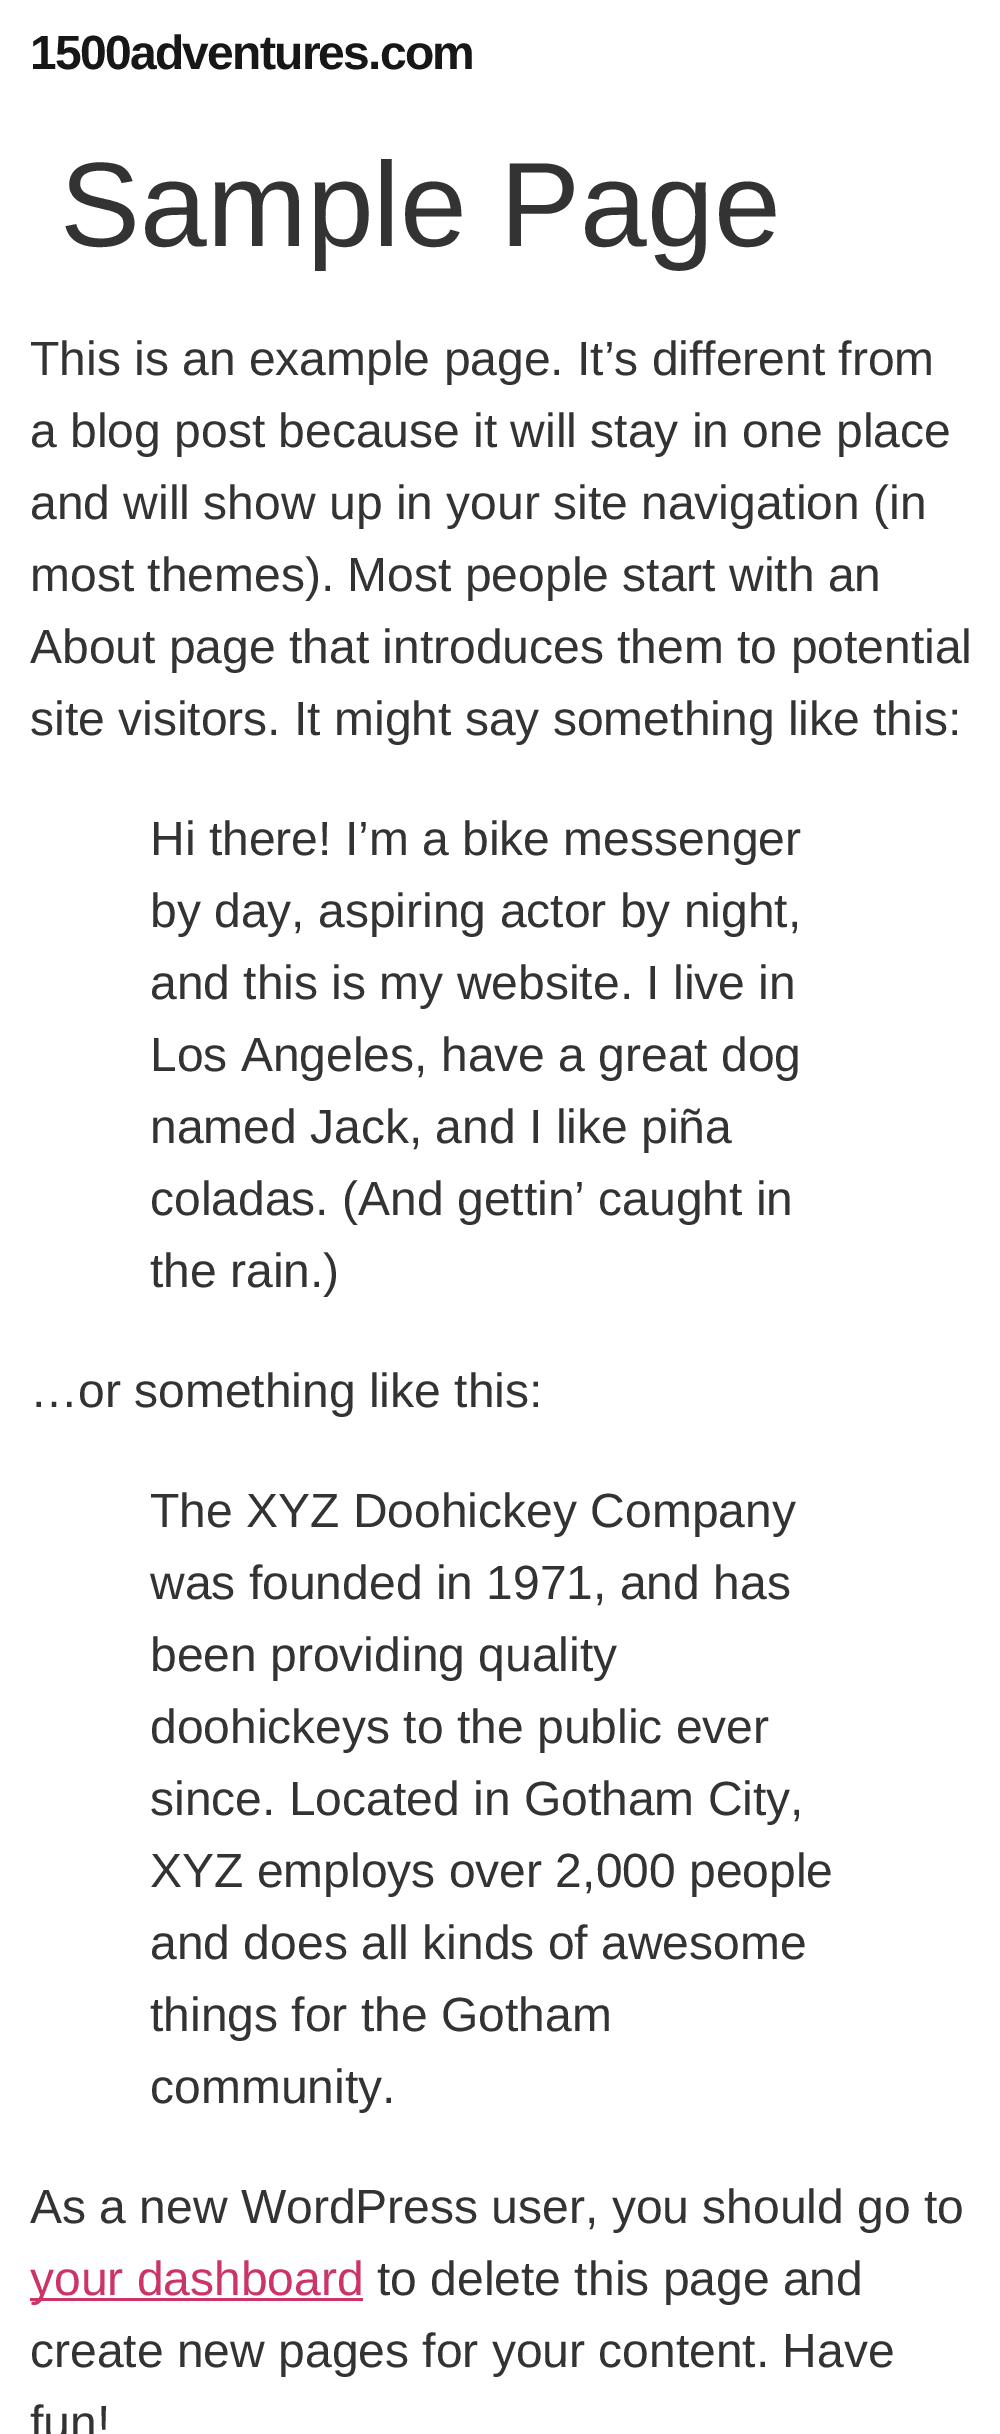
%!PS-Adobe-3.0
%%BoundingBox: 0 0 1000 2434
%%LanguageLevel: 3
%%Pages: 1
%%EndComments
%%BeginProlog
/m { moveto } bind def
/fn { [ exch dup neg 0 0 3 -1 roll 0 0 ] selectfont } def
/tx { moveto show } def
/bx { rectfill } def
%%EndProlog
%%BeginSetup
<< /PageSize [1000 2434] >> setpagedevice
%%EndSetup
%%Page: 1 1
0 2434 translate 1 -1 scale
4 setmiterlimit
1 setgray
0 0 1000 2434 bx
/LiberationSans-Bold 48 fn
0.09 setgray
30 69 m -1.75 0 (1500adventures.com) ashow
/LiberationSans-Regular 120 fn
0.2 setgray
(Sample Page) 60 246 tx
/LiberationSans-Regular 48 fn
(This is an example page. It’s different from) 30 375 tx
(a blog post because it will stay in one place) 30 447 tx
(and will show up in your site navigation \(in) 30 519 tx
(most themes\). Most people start with an) 30 591 tx
(About page that introduces them to potential) 30 663 tx
(site visitors. It might say something like this:) 30 735 tx
(Hi there! I’m a bike messenger) 150 855 tx
(by day, aspiring actor by night,) 150 927 tx
(and this is my website. I live in) 150 999 tx
(Los Angeles, have a great dog) 150 1071 tx
(named Jack, and I like piña) 150 1143 tx
(coladas. \(And gettin’ caught in) 150 1215 tx
(the rain.\)) 150 1287 tx
(…or something like this:) 30 1407 tx
(The XYZ Doohickey Company) 150 1527 tx
(was founded in 1971, and has) 150 1599 tx
(been providing quality) 150 1671 tx
(doohickeys to the public ever) 150 1743 tx
(since. Located in Gotham City,) 150 1815 tx
(XYZ employs over 2,000 people) 150 1887 tx
(and does all kinds of awesome) 150 1959 tx
(things for the Gotham) 150 2031 tx
(community.) 150 2103 tx
(As a new WordPress user, you should go to) 30 2223 tx
0.8 0.2 0.4 setrgbcolor
30 2298 333 3 bx
(your dashboard) 30 2295 tx
0.2 setgray
(to delete this page and) 377 2295 tx
(create new pages for your content. Have) 30 2367 tx
(fun!) 30 2439 tx
showpage
%%EOF
